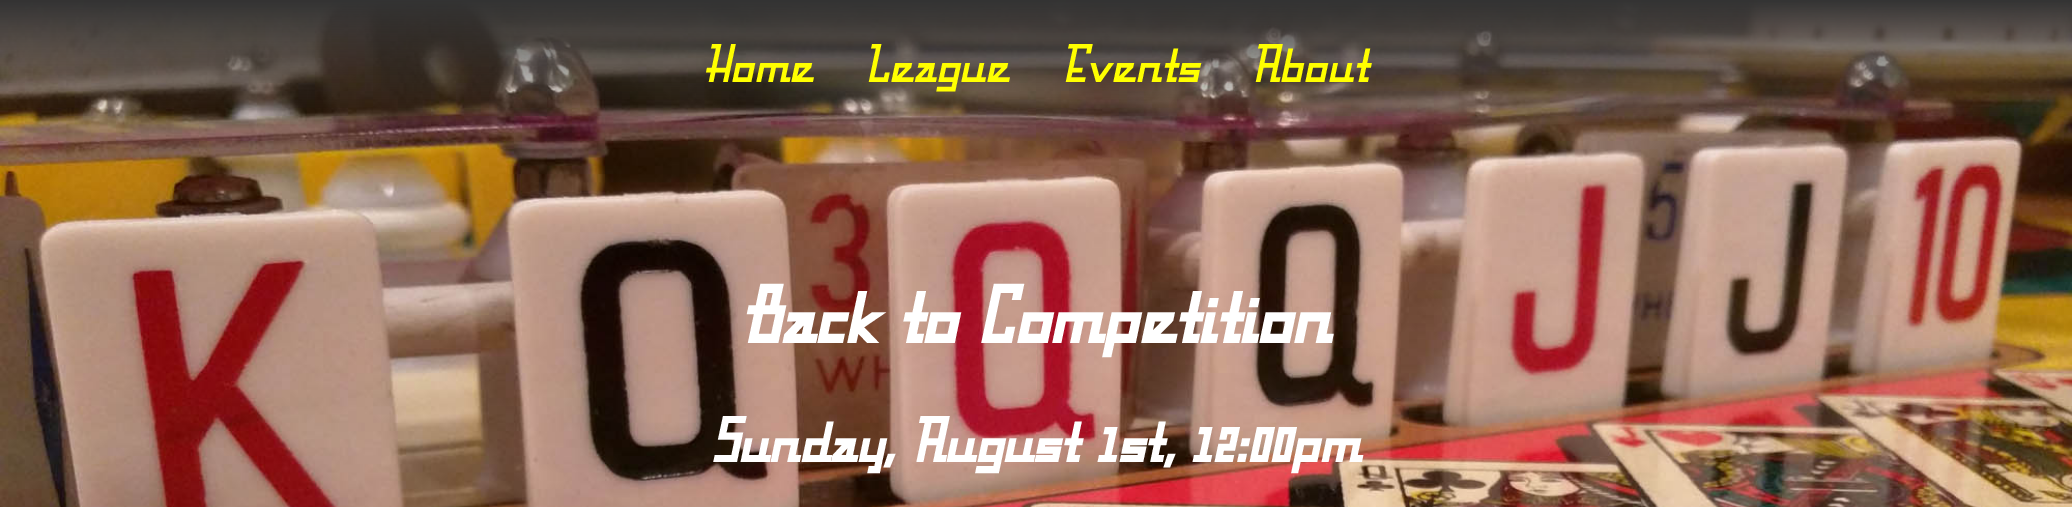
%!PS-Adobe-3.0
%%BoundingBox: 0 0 2072 507
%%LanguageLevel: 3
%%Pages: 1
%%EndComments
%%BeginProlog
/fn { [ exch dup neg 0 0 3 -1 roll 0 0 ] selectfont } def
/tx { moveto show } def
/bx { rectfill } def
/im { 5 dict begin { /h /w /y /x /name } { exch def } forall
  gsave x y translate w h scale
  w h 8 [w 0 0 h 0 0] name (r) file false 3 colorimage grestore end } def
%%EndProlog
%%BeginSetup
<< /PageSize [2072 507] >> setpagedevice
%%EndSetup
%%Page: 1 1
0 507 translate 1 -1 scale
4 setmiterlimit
1 setgray
0 0 2072 507 bx
(image0.raw) 0 0 2072 507 im
/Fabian-Regular 48 fn
1 1 0 setrgbcolor
(Home) 704 82 tx
(League) 864 82 tx
(Events) 1061 82 tx
(About) 1251 82 tx
/Fabian-Bold 72 fn
1 setgray
(Back to Competition) 741 343 tx
/Fabian-Bold 56 fn
(Sunday, August 1st, 12:00pm) 711 462 tx
showpage
%%EOF
